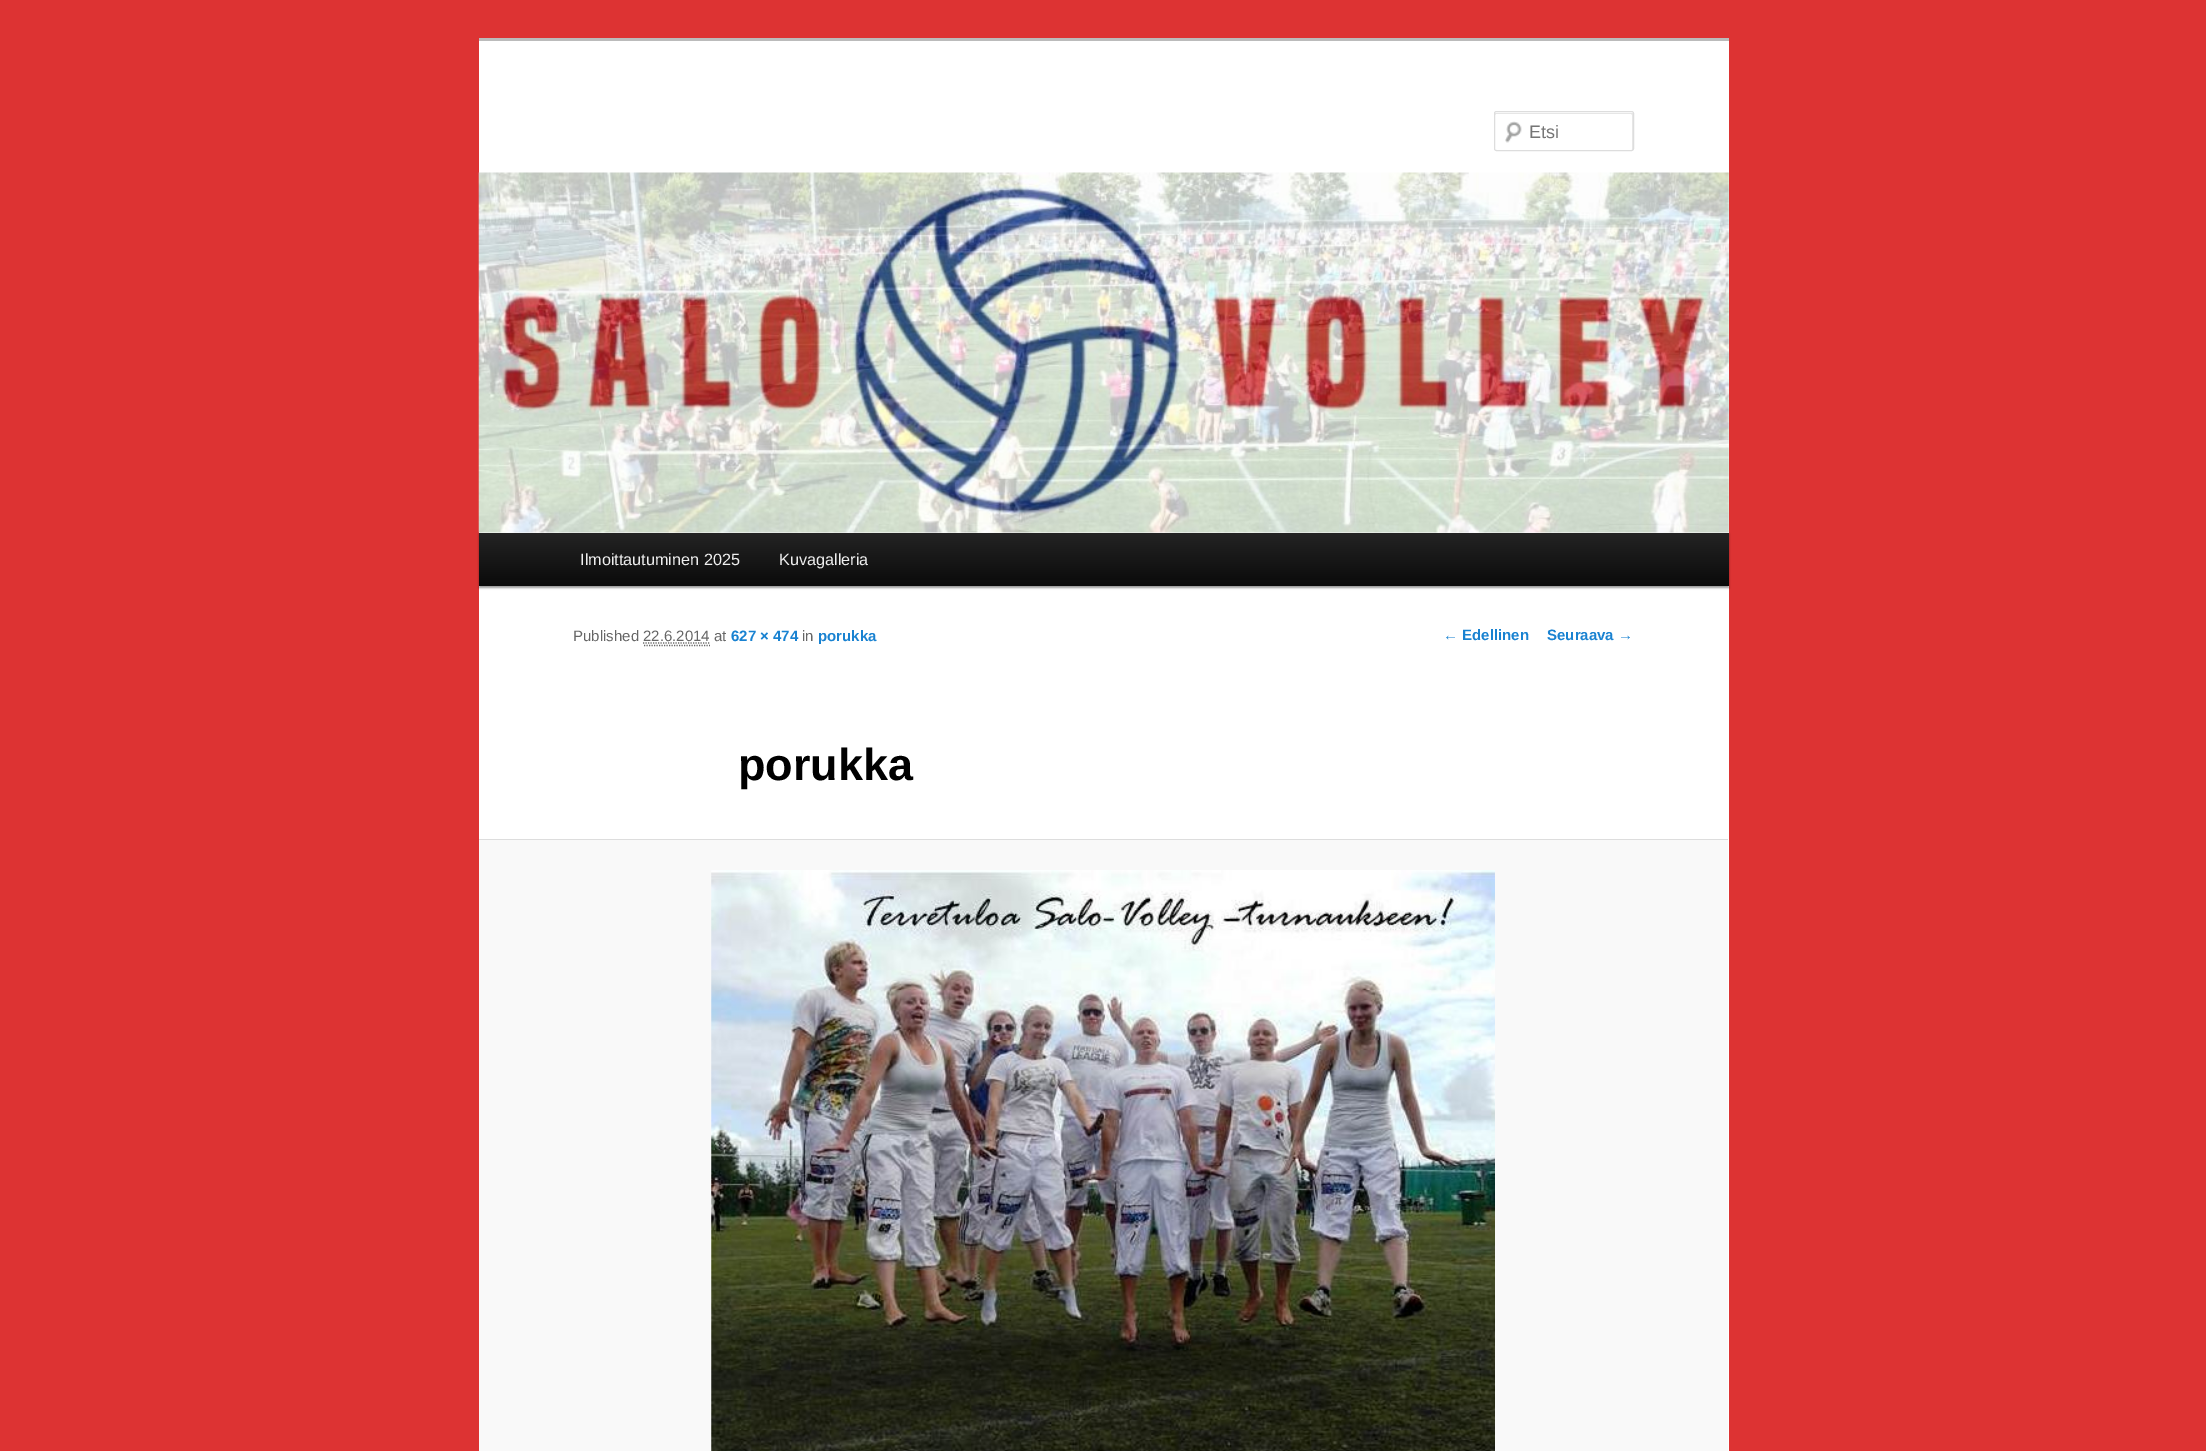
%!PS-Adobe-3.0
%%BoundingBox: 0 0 2206 1451
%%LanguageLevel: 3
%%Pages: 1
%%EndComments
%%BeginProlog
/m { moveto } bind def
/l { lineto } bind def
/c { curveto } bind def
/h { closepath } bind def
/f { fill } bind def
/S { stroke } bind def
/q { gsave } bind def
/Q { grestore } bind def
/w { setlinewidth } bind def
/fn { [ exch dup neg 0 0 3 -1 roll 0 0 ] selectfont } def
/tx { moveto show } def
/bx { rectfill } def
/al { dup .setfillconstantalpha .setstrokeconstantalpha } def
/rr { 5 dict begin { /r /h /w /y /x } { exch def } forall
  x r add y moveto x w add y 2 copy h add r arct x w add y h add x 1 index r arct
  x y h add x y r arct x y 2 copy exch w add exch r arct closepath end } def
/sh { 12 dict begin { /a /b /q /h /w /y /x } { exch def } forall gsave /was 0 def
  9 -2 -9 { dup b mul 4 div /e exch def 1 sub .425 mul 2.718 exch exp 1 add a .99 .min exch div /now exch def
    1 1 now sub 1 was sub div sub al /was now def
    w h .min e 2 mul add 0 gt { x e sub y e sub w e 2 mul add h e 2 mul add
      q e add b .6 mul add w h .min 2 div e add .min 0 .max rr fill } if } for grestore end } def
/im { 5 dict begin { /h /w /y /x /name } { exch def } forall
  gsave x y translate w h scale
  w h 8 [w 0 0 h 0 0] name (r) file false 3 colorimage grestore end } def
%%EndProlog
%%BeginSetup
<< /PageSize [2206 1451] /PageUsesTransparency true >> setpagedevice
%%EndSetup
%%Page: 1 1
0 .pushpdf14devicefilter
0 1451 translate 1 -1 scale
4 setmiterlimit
0.867 0.2 0.2 setrgbcolor
0 0 2206 1451 bx
1 setgray
479 41 1250 1410 bx
0.733 setgray
479 38 1250 3 bx
(image0.raw) 1505 121 17 22 im
0.902 setgray
1496 114 m 1631 114 l 1632 114 1632 114 1632 115 c 1632 150 l 1633 150 1633 150 1633 149 c 1633 114 l 1633 113 1633 113 1632 113 c 1496 113 l 1495 113 1495 113 1495 114 c 1495 115 l h f
0.867 setgray
1494.5 111.5 139 39 2 rr S
/LiberationSans-Regular 18 fn
0.459 setgray
(Etsi) 1529 138 tx
0 setgray
479 534 1250 54 0 1 0.4 sh
(image1.raw) 478 172 1251 361 im
q 479 533 m 1729 533 l 1729 586 l 479 586 l h clip newpath
<< /ShadingType 2 /ColorSpace /DeviceRGB /Coords [1104 532 1104 586] /Extend [true true] /Function << /FunctionType 2 /Domain [0 1] /C0 [0.145 0.145 0.145] /C1 [0.039 0.039 0.039] /N 1 >> >> shfill Q
/LiberationSans-Regular 16.25 fn
0.933 setgray
(Ilmoittautuminen 2025) 580 565 tx
(Kuvagalleria) 779 565 tx
/LiberationSans-Regular 15 fn
0.4 setgray
(Published 22.6.2014 at) 573 641 tx
/LiberationSans-Bold 15 fn
0.098 0.51 0.82 setrgbcolor
(627 × 474) 731 641 tx
/LiberationSans-Regular 15 fn
0.4 setgray
(in) 802 641 tx
/LiberationSans-Bold 15 fn
0.098 0.51 0.82 setrgbcolor
(porukka) 818 641 tx
0.4 setgray
1.2 w
[1.25 1.25] 0 setdash
643 643 m 710 643 l S
644 645.5 m 710 645.5 l S
/LiberationSans-Bold 45 fn
0 setgray
(porukka) 738 780 tx
0.976 setgray
479 840 1249 611 bx
0.867 setgray
479 839 1249 1 bx
(image2.raw) 711 870 784 581 im
/LiberationSans-Bold 15 fn
0.098 0.51 0.82 setrgbcolor
(← Edellinen) 1443 640 tx
(Seuraava →) 1547 640 tx
.poppdf14devicefilter showpage
%%EOF
